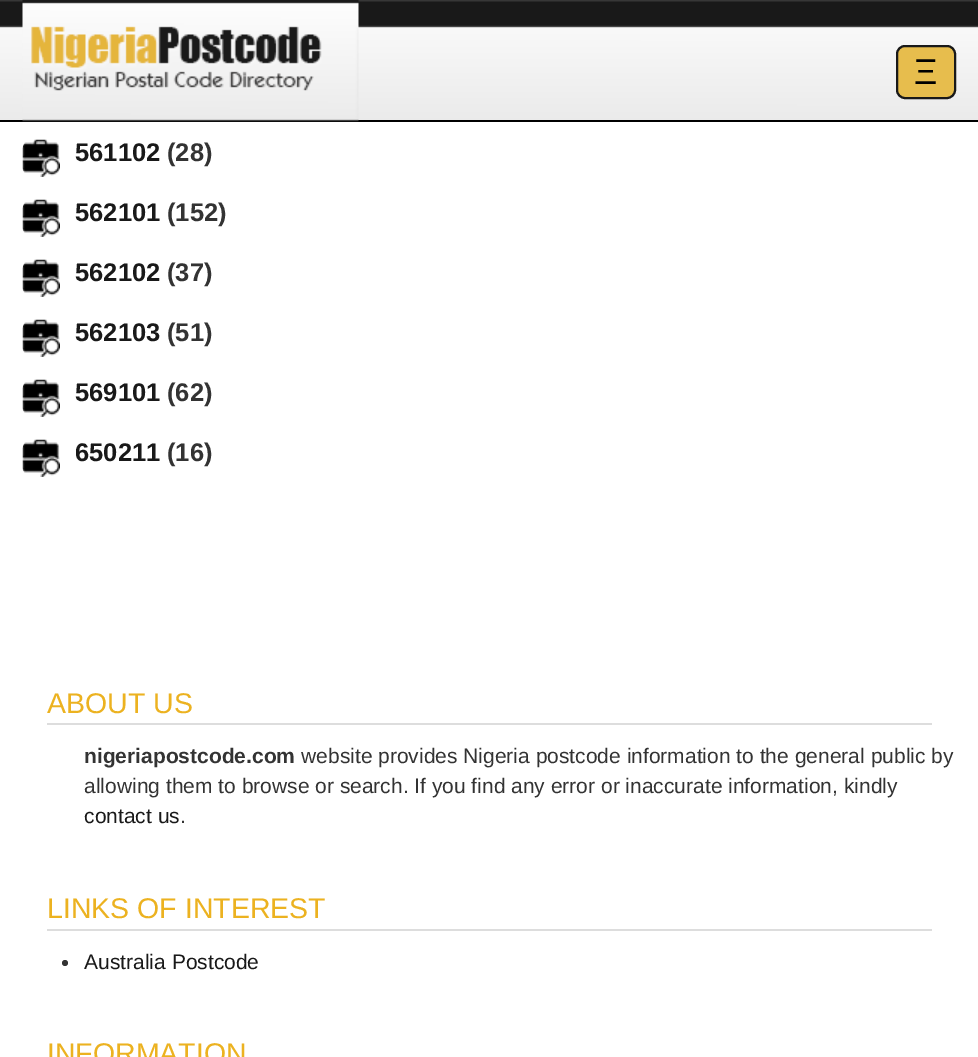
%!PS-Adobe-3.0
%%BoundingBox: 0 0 978 1057
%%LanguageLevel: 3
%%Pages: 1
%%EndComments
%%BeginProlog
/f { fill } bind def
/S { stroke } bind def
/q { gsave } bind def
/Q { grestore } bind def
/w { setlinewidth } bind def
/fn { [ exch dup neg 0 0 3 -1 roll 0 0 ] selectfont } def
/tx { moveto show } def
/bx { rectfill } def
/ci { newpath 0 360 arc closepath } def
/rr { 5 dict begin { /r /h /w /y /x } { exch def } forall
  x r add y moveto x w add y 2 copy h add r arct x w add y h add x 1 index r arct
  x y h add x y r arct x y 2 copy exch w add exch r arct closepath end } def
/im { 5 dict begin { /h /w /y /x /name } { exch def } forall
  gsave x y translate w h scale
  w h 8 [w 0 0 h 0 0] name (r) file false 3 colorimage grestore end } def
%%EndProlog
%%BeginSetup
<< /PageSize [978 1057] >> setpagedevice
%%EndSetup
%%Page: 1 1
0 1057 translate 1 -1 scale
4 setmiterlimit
1 setgray
0 0 978 1057 bx
(image0.raw) 0 0 978 120 im
0 setgray
0 120 978 2 bx
(image1.raw) 22 0 337 122 im
0.906 0.741 0.302 setrgbcolor
897 46 58 52 8 rr q f Q
0.098 setgray
2 w
S
/LiberationSans-Regular 36 fn
0 setgray
(Ξ) 914 84 tx
(image2.raw) 22 139 38 38 im
/LiberationSans-Bold 25.5 fn
0.098 setgray
(561102) 75 161 tx
0.2 setgray
(\(28\)) 167 161 tx
(image2.raw) 22 199 38 38 im
0.098 setgray
(562101) 75 221 tx
0.2 setgray
(\(152\)) 167 221 tx
(image2.raw) 22 259 38 38 im
0.098 setgray
(562102) 75 281 tx
0.2 setgray
(\(37\)) 167 281 tx
(image2.raw) 22 319 38 38 im
0.098 setgray
(562103) 75 341 tx
0.2 setgray
(\(51\)) 167 341 tx
(image2.raw) 22 379 38 38 im
0.098 setgray
(569101) 75 401 tx
0.2 setgray
(\(62\)) 167 401 tx
(image2.raw) 22 439 38 38 im
0.098 setgray
(650211) 75 461 tx
0.2 setgray
(\(16\)) 167 461 tx
0.867 setgray
47 723 885 2 bx
/LiberationSans-Regular 28.5 fn
0.925 0.698 0.125 setrgbcolor
(ABOUT US) 47 713 tx
/LiberationSans-Bold 21 fn
0.2 setgray
(nigeriapostcode.com) 84 763 tx
/LiberationSans-Regular 21 fn
(website provides Nigeria postcode information to the general public by) 301 763 tx
(allowing them to browse or search. If you find any error or inaccurate information, kindly) 84 793 tx
0.098 setgray
(contact us) 84 823 tx
0.2 setgray
(.) 180 823 tx
0.867 setgray
47 929 885 2 bx
/LiberationSans-Regular 28.5 fn
0.925 0.698 0.125 setrgbcolor
(LINKS OF INTEREST) 47 918 tx
0.2 setgray
65 963 3 ci f
/LiberationSans-Regular 21 fn
0.098 setgray
(Australia Postcode) 84 969 tx
/LiberationSans-Regular 28.5 fn
0.925 0.698 0.125 setrgbcolor
(INFORMATION) 47 1063 tx
showpage
%%EOF
